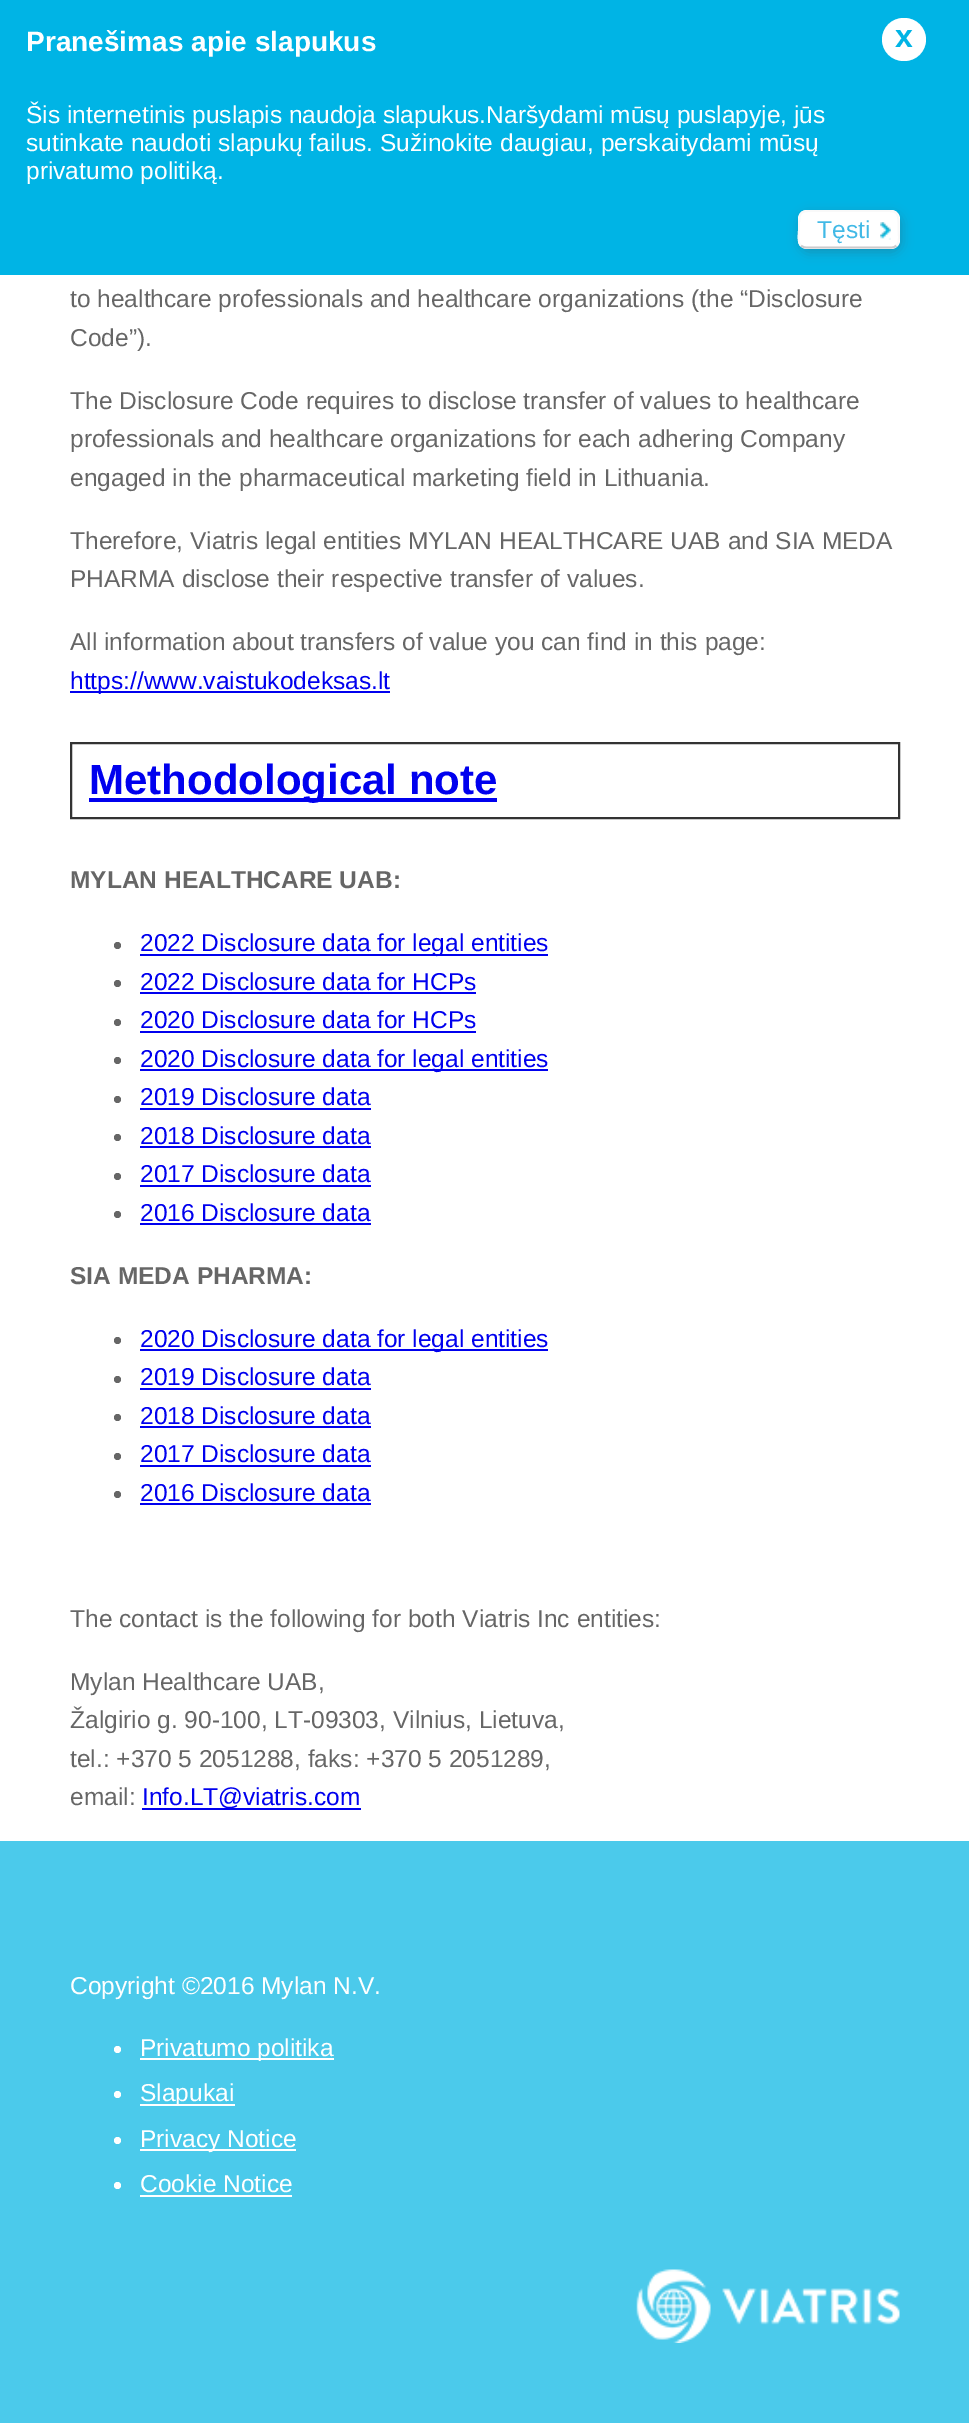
%!PS-Adobe-3.0
%%BoundingBox: 0 0 969 2423
%%LanguageLevel: 3
%%Pages: 1
%%EndComments
%%BeginProlog
/m { moveto } bind def
/l { lineto } bind def
/c { curveto } bind def
/f { fill } bind def
/S { stroke } bind def
/q { gsave } bind def
/Q { grestore } bind def
/w { setlinewidth } bind def
/fn { [ exch dup neg 0 0 3 -1 roll 0 0 ] selectfont } def
/tx { moveto show } def
/bx { rectfill } def
/al { dup .setfillconstantalpha .setstrokeconstantalpha } def
/ci { newpath 0 360 arc closepath } def
/rr { 5 dict begin { /r /h /w /y /x } { exch def } forall
  x r add y moveto x w add y 2 copy h add r arct x w add y h add x 1 index r arct
  x y h add x y r arct x y 2 copy exch w add exch r arct closepath end } def
/sh { 12 dict begin { /a /b /q /h /w /y /x } { exch def } forall gsave /was 0 def
  9 -2 -9 { dup b mul 4 div /e exch def 1 sub .425 mul 2.718 exch exp 1 add a .99 .min exch div /now exch def
    1 1 now sub 1 was sub div sub al /was now def
    w h .min e 2 mul add 0 gt { x e sub y e sub w e 2 mul add h e 2 mul add
      q e add b .6 mul add w h .min 2 div e add .min 0 .max rr fill } if } for grestore end } def
/im { 5 dict begin { /h /w /y /x /name } { exch def } forall
  gsave x y translate w h scale
  w h 8 [w 0 0 h 0 0] name (r) file false 3 colorimage grestore end } def
%%EndProlog
%%BeginSetup
<< /PageSize [969 2423] /PageUsesTransparency true >> setpagedevice
%%EndSetup
%%Page: 1 1
0 .pushpdf14devicefilter
0 2423 translate 1 -1 scale
4 setmiterlimit
1 setgray
0 0 969 2423 bx
0 0.706 0.898 setrgbcolor
0 0 969 275 bx
/LiberationSans-Bold 28 fn
1 setgray
(Pranešimas apie slapukus) 26 51 tx
/LiberationSans-Regular 24.5 fn
(Šis internetinis puslapis naudoja slapukus.Naršydami mūsų puslapyje, jūs) 26 123 tx
(sutinkate naudoti slapukų failus. Sužinokite daugiau, perskaitydami mūsų) 26 151 tx
q
26 26 917 158 rectclip
(privatumo politiką.) 26 179 tx
Q
882 18 44 43 21.5 rr f
/LiberationSans-Bold 32 fn
0 0.706 0.898 setrgbcolor
(x) 895 47 tx
0.267 setgray
800 214 101 38 9 6 0.3 sh
1 setgray
798 210 102 39 9 rr f
0.8 0.796 0.804 setrgbcolor
1.8 w
896.5 245.5 m 895 247 893 247.5 891 247.5 c 807 247.5 l 804.5 247.5 802.5 247 801 245.5 c S
0.976 setgray
801 245.5 m 797 241.5 799 234 799 229 c 799 209 799.5 211 821 211 c 877 211 l 898 211 898.5 209 898.5 229 c 898.5 234 900.5 241.5 896.5 245.5 c S
/LiberationSans-Regular 24.5 fn
0.259 0.725 0.902 setrgbcolor
(Tęsti) 817 238 tx
(image0.raw) 880 222 11 18 im
0.4 setgray
(to healthcare professionals and healthcare organizations \(the “Disclosure) 70 307 tx
(Code”\).) 70 346 tx
(The Disclosure Code requires to disclose transfer of values to healthcare) 70 409 tx
(professionals and healthcare organizations for each adhering Company) 70 447 tx
(engaged in the pharmaceutical marketing field in Lithuania.) 70 486 tx
(Therefore, Viatris legal entities MYLAN HEALTHCARE UAB and SIA MEDA) 70 549 tx
(PHARMA disclose their respective transfer of values.) 70 587 tx
(All information about transfers of value you can find in this page:) 70 650 tx
0 0 0.933 setrgbcolor
70 691 320 2 bx
(https://www.vaistukodeksas.lt) 70 689 tx
0.2 setgray
2 w
71 743 828 75 rectstroke
0 0 0.933 setrgbcolor
89 798 408 4 bx
/LiberationSans-Bold 42 fn
(Methodological note) 89 794 tx
/LiberationSans-Bold 24.5 fn
0.4 setgray
(MYLAN HEALTHCARE UAB:) 70 888 tx
117.5 945.5 3.5 ci f
0 0 0.933 setrgbcolor
140 954 408 2 bx
/LiberationSans-Regular 24.5 fn
(2022 Disclosure data for legal entities) 140 951 tx
0.4 setgray
117.5 983.5 3.5 ci f
0 0 0.933 setrgbcolor
(2022 Disclosure data for HCPs) 140 990 tx
140 992 336 2 bx
0.4 setgray
117.5 1022.5 3.5 ci f
0 0 0.933 setrgbcolor
(2020 Disclosure data for HCPs) 140 1028 tx
140 1031 336 2 bx
0.4 setgray
117.5 1060.5 3.5 ci f
0 0 0.933 setrgbcolor
140 1069 408 2 bx
(2020 Disclosure data for legal entities) 140 1067 tx
0.4 setgray
117.5 1099.5 3.5 ci f
0 0 0.933 setrgbcolor
(2019 Disclosure data) 140 1105 tx
140 1108 231 2 bx
0.4 setgray
117.5 1137.5 3.5 ci f
0 0 0.933 setrgbcolor
(2018 Disclosure data) 140 1144 tx
140 1146 231 2 bx
0.4 setgray
117.5 1176.5 3.5 ci f
0 0 0.933 setrgbcolor
(2017 Disclosure data) 140 1182 tx
140 1185 231 2 bx
0.4 setgray
117.5 1214.5 3.5 ci f
0 0 0.933 setrgbcolor
(2016 Disclosure data) 140 1221 tx
140 1223 231 2 bx
/LiberationSans-Bold 24.5 fn
0.4 setgray
(SIA MEDA PHARMA:) 70 1284 tx
117.5 1340.5 3.5 ci f
0 0 0.933 setrgbcolor
140 1349 408 2 bx
/LiberationSans-Regular 24.5 fn
(2020 Disclosure data for legal entities) 140 1347 tx
0.4 setgray
117.5 1379.5 3.5 ci f
0 0 0.933 setrgbcolor
(2019 Disclosure data) 140 1385 tx
140 1388 231 2 bx
0.4 setgray
117.5 1417.5 3.5 ci f
0 0 0.933 setrgbcolor
(2018 Disclosure data) 140 1424 tx
140 1426 231 2 bx
0.4 setgray
117.5 1456.5 3.5 ci f
0 0 0.933 setrgbcolor
(2017 Disclosure data) 140 1462 tx
140 1465 231 2 bx
0.4 setgray
117.5 1494.5 3.5 ci f
0 0 0.933 setrgbcolor
(2016 Disclosure data) 140 1501 tx
140 1503 231 2 bx
0.4 setgray
(The contact is the following for both Viatris Inc entities:) 70 1627 tx
(Mylan Healthcare UAB,) 70 1690 tx
(Žalgirio g. 90-100, LT-09303, Vilnius, Lietuva,) 70 1728 tx
(tel.: +370 5 2051288, faks: +370 5 2051289,) 70 1767 tx
(email:) 70 1805 tx
0 0 0.933 setrgbcolor
142 1808 219 2 bx
(Info.LT@viatris.com) 142 1805 tx
0.294 0.792 0.922 setrgbcolor
0 1841 969 582 bx
1 setgray
(Copyright ©2016 Mylan N.V.) 70 1994 tx
117.5 2049.5 3.5 ci f
140 2058 194 2 bx
(Privatumo politika) 140 2056 tx
117.5 2094.5 3.5 ci f
140 2104 95 2 bx
(Slapukai) 140 2101 tx
117.5 2140.5 3.5 ci f
140 2149 156 2 bx
(Privacy Notice) 140 2147 tx
117.5 2185.5 3.5 ci f
(Cookie Notice) 140 2192 tx
140 2195 152 2 bx
(image1.raw) 636 2269 264 74 im
.poppdf14devicefilter showpage
%%EOF
